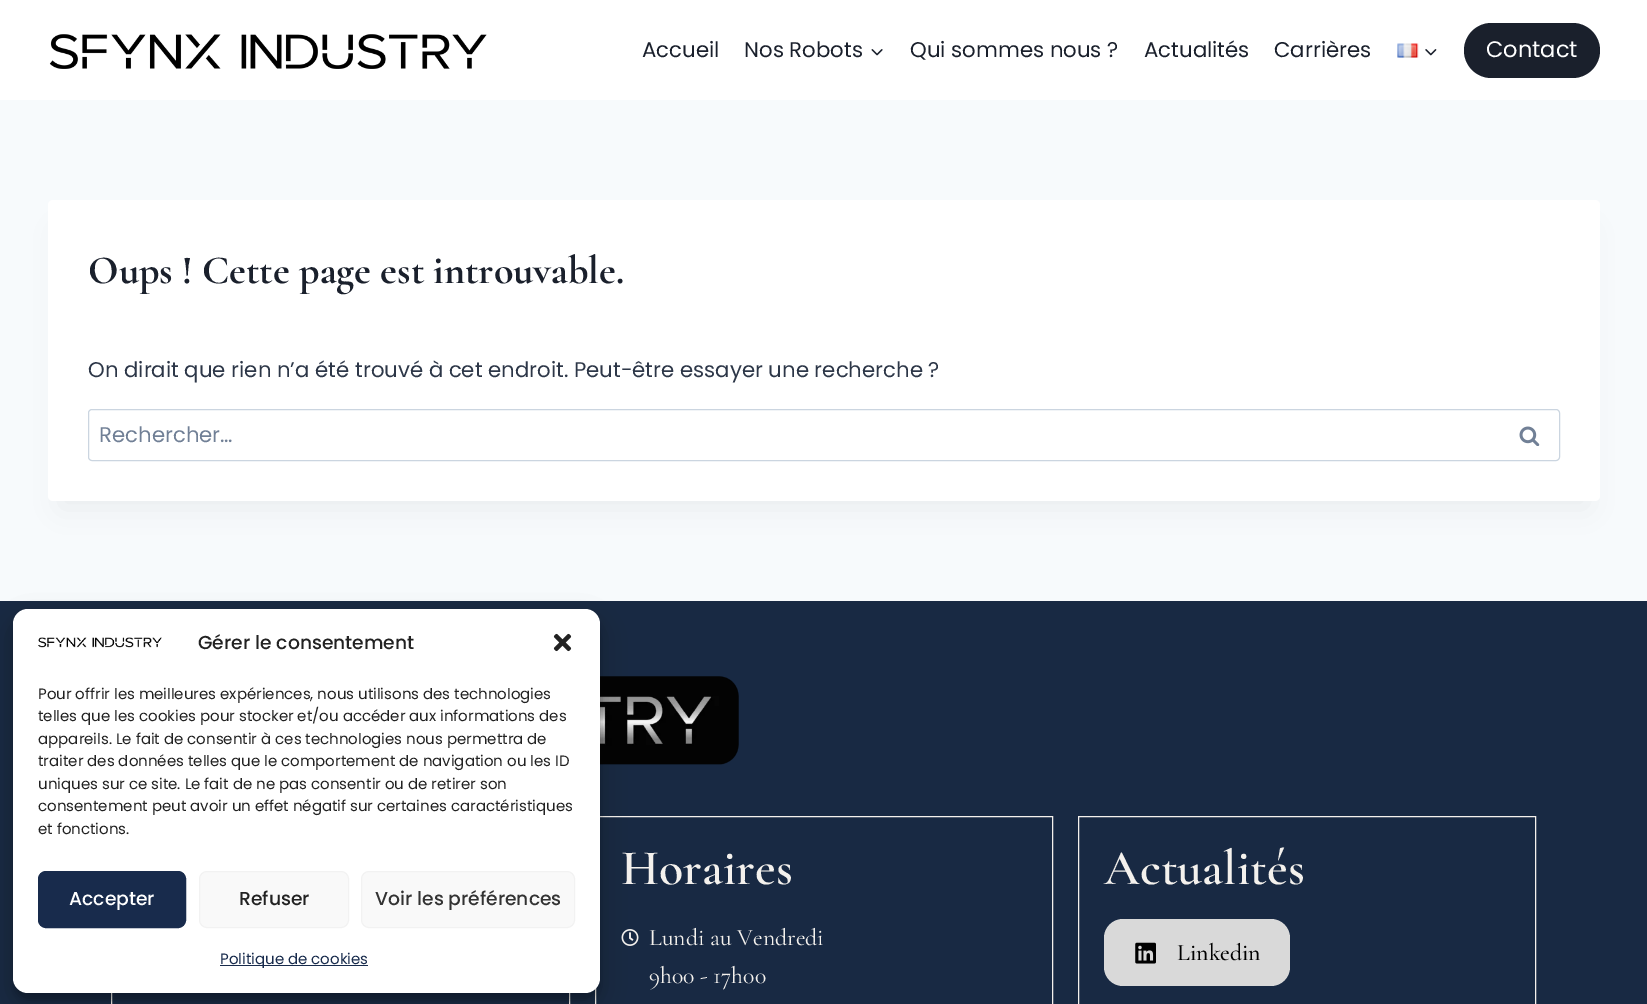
%!PS-Adobe-3.0
%%BoundingBox: 0 0 1647 1004
%%LanguageLevel: 3
%%Pages: 1
%%EndComments
%%BeginProlog
/f { fill } bind def
/S { stroke } bind def
/q { gsave } bind def
/Q { grestore } bind def
/fn { [ exch dup neg 0 0 3 -1 roll 0 0 ] selectfont } def
/tx { moveto show } def
/bx { rectfill } def
/al { dup .setfillconstantalpha .setstrokeconstantalpha } def
/rr { 5 dict begin { /r /h /w /y /x } { exch def } forall
  x r add y moveto x w add y 2 copy h add r arct x w add y h add x 1 index r arct
  x y h add x y r arct x y 2 copy exch w add exch r arct closepath end } def
/sh { 12 dict begin { /a /b /q /h /w /y /x } { exch def } forall gsave /was 0 def
  9 -2 -9 { dup b mul 4 div /e exch def 1 sub .425 mul 2.718 exch exp 1 add a .99 .min exch div /now exch def
    1 1 now sub 1 was sub div sub al /was now def
    w h .min e 2 mul add 0 gt { x e sub y e sub w e 2 mul add h e 2 mul add
      q e add b .6 mul add w h .min 2 div e add .min 0 .max rr fill } if } for grestore end } def
/im { 5 dict begin { /h /w /y /x /name } { exch def } forall
  gsave x y translate w h scale
  w h 8 [w 0 0 h 0 0] name (r) file false 3 colorimage grestore end } def
%%EndProlog
%%BeginSetup
<< /PageSize [1647 1004] /PageUsesTransparency true >> setpagedevice
%%EndSetup
%%Page: 1 1
0 .pushpdf14devicefilter
0 1004 translate 1 -1 scale
4 setmiterlimit
0.969 0.98 0.988 setrgbcolor
0 0 1647 1004 bx
1 setgray
0 0 1647 100 bx
(image0.raw) 49 34 438 35 im
/Poppins-Regular 21.25 fn
0.102 0.125 0.173 setrgbcolor
(Accueil) 642 57 tx
(Nos Robots) 744 57 tx
(image1.raw) 871 49 12 7 im
(Qui sommes nous ?) 910 57 tx
(Actualités) 1144 57 tx
(Carrières) 1274 57 tx
(image2.raw) 1397 43 22 15 im
(image3.raw) 1425 49 12 7 im
1464 23 136 55 27.5 rr f
/Poppins-Regular 22.5 fn
1 setgray
(Contact) 1486 57 tx
0 setgray
60 231 1528 277 0 15.5 0.05 sh
1 setgray
48 200 1552 301 5 rr f
/CormorantGaramond-Bold 40 fn
0.102 0.125 0.173 setrgbcolor
(Oups ! Cette page est introuvable.) 88 283 tx
/Poppins-Regular 21.25 fn
0.176 0.216 0.282 setrgbcolor
(On dirait que rien n’a été trouvé à cet endroit. Peut-être essayer une recherche ?) 88 377 tx
0.796 0.835 0.878 setrgbcolor
88.5 409.5 1471 51 3.5 rr S
0.443 0.502 0.588 setrgbcolor
(Rechercher…) 99 442 tx
(image4.raw) 1519 426 21 20 im
0.094 0.161 0.263 setrgbcolor
0 601 1647 403 bx
(image5.raw) 600 676 139 89 im
0.957 0.945 0.929 setrgbcolor
111.5 816.5 458 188 rectstroke
595.5 816.5 457 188 rectstroke
/CormorantGaramond-SemiBold 50 fn
(Horaires) 621 884 tx
(image6.raw) 621 929 18 17 im
/CormorantGaramond-Regular 23.75 fn
(Lundi au Vendredi) 649 945 tx
(9h00 - 17h00) 649 983 tx
1078.5 816.5 457 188 rectstroke
/CormorantGaramond-SemiBold 50 fn
(Actualités) 1104 884 tx
0.851 setgray
1104 919 186 67 19 rr f
(image7.raw) 1135 942 21 22 im
/CormorantGaramond-Medium 23.75 fn
0 setgray
(Linkedin) 1177 960 tx
13 616 587 384 15 4 0.23 sh
13 621 587 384 15 12.5 0.19 sh
1 setgray
13 609 587 384 15 rr f
(image8.raw) 38 637 124 11 im
/Poppins-Medium 18.75 fn
0.133 setgray
(Gérer le consentement) 198 649 tx
(image9.raw) 553 633 19 19 im
/Poppins-Regular 15 fn
(Pour offrir les meilleures expériences, nous utilisons des technologies) 38 699 tx
(telles que les cookies pour stocker et/ou accéder aux informations des) 38 721 tx
(appareils. Le fait de consentir à ces technologies nous permettra de) 38 744 tx
(traiter des données telles que le comportement de navigation ou les ID) 38 766 tx
(uniques sur ce site. Le fait de ne pas consentir ou de retirer son) 38 789 tx
(consentement peut avoir un effet négatif sur certaines caractéristiques) 38 811 tx
(et fonctions.) 38 834 tx
0.094 0.169 0.298 setrgbcolor
38.5 871.5 147 56 7.5 rr q f Q
S
/Poppins-Medium 18.75 fn
1 setgray
(Accepter) 69 905 tx
0.976 setgray
199.5 871.5 149 56 7.5 rr q f Q
0.949 setgray
S
0.133 setgray
(Refuser) 239 905 tx
0.976 setgray
361.5 871.5 213 56 7.5 rr q f Q
0.949 setgray
S
0.2 setgray
(Voir les préférences) 375 905 tx
0.094 0.169 0.298 setrgbcolor
220 965 148 1 bx
/Poppins-Regular 15 fn
(Politique de cookies) 220 964 tx
.poppdf14devicefilter showpage
%%EOF
